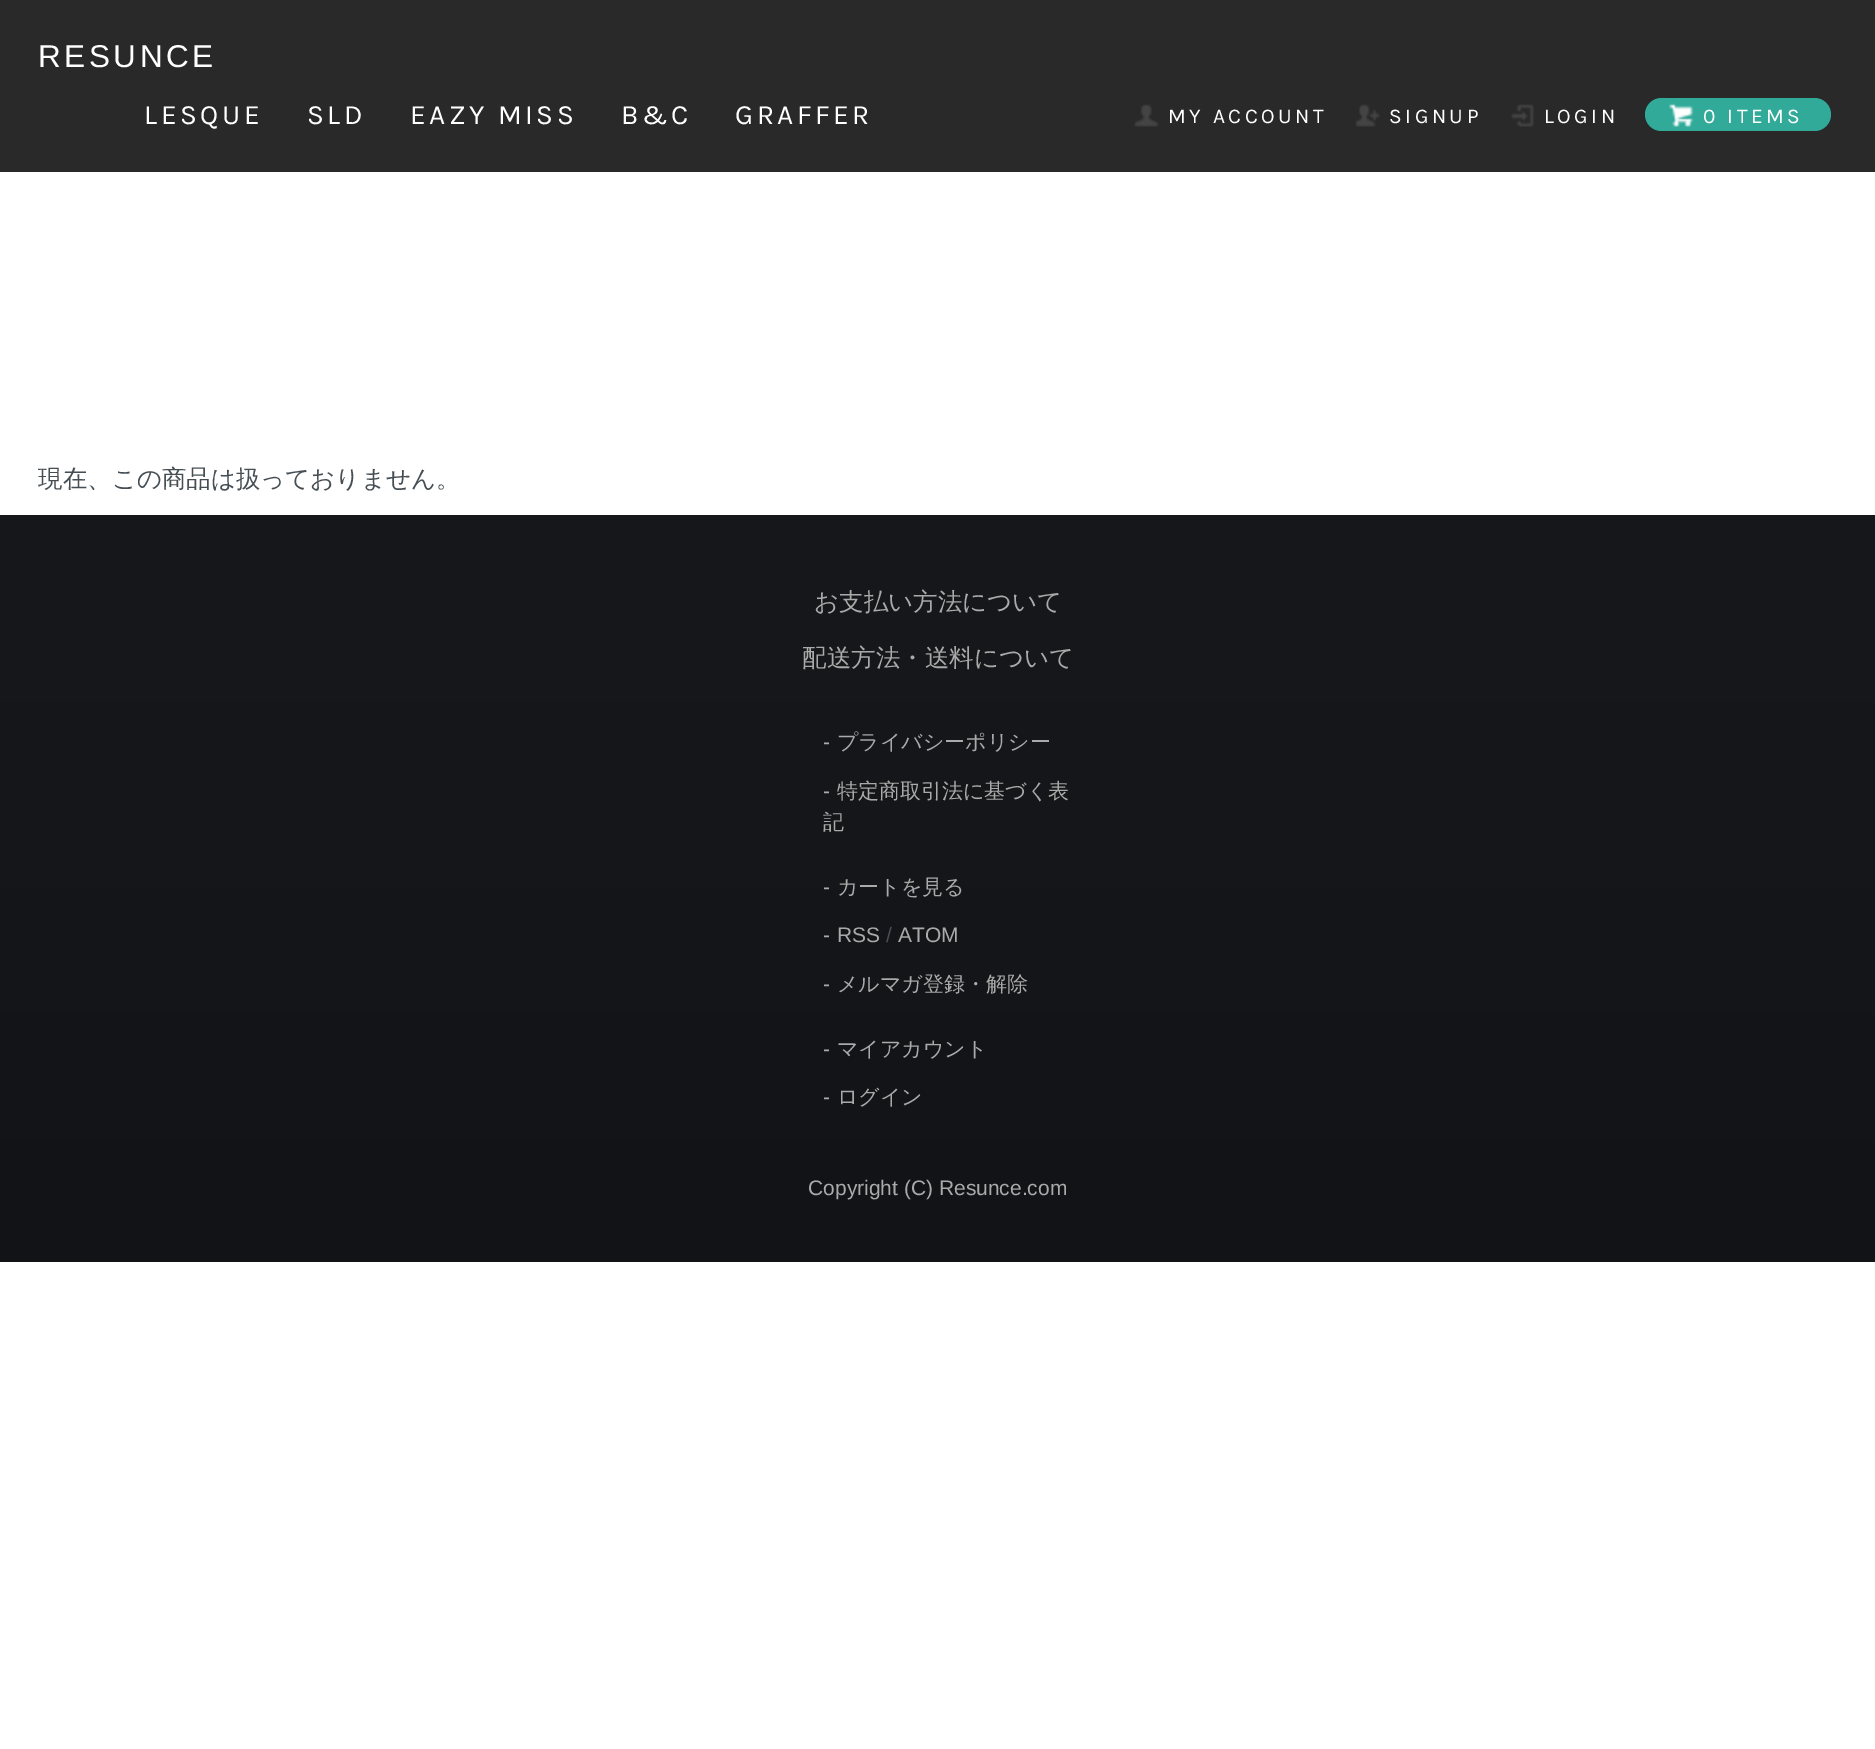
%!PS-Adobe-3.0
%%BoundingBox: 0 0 1875 1749
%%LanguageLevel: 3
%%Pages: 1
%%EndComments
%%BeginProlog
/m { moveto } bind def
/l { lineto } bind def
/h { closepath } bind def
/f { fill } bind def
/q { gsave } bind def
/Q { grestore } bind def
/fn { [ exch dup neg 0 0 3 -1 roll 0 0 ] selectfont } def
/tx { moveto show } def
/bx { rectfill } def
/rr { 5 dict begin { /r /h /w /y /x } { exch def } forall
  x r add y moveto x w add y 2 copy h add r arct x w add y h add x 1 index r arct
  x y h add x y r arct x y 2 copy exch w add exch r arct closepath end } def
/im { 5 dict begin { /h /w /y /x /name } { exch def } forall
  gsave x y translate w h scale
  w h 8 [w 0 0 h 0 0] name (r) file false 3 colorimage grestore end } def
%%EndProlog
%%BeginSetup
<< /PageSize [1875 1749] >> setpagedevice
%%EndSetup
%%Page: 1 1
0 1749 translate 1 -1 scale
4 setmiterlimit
1 setgray
0 0 1875 1749 bx
0.161 setgray
0 0 1875 172 bx
/LiberationSans-Regular 31.5 fn
1 setgray
38 67 m 3.5 0 (RESUNCE) ashow
/Karla-Regular 28 fn
144 124 m 3.5 0 (LESQUE) ashow
307 124 m 3.5 0 (SLD) ashow
410 124 m 3.5 0 (EAZY MISS) ashow
621 124 m 3.5 0 (B&C) ashow
735 124 m 3.5 0 (GRAFFER) ashow
(image0.raw) 1134 104 25 23 im
/Karla-Regular 21 fn
1168 123 m 3.5 0 (MY ACCOUNT) ashow
(image1.raw) 1355 104 25 23 im
1389 123 m 3.5 0 (SIGNUP) ashow
(image2.raw) 1511 104 23 23 im
1544 123 m 3.5 0 (LOGIN) ashow
0.192 0.667 0.6 setrgbcolor
1645 98 186 33 16.5 rr f
(image3.raw) 1669 103 25 25 im
1 setgray
1703 123 m 3.5 0 (0 ITEMS) ashow
/WenQuanYiZenHei-Medium 24.5 fn
0.275 0.306 0.329 setrgbcolor
(現在、この商品は扱っておりません。) 38 487 tx
q 0 515 m 1875 515 l 1875 1262 l 0 1262 l h clip newpath
<< /ShadingType 2 /ColorSpace /DeviceRGB /Coords [938 514 938 1262] /Extend [true true] /Function << /FunctionType 2 /Domain [0 1] /C0 [0.09 0.094 0.11] /C1 [0.071 0.075 0.09] /N 1 >> >> shfill Q
0.671 0.667 0.667 setrgbcolor
(お支払い方法について) 814 610 tx
(配送方法・送料について) 802 666 tx
/LiberationSans-Regular 21 fn
(-) 823 749 tx
/WenQuanYiZenHei-Medium 21 fn
(プライバシーポリシー) 837 749 tx
/LiberationSans-Regular 21 fn
(-) 823 798 tx
/WenQuanYiZenHei-Medium 21 fn
(特定商取引法に基づく表) 837 798 tx
(記) 823 829 tx
/LiberationSans-Regular 21 fn
(-) 823 894 tx
/WenQuanYiZenHei-Medium 21 fn
(カートを見る) 837 894 tx
/LiberationSans-Regular 21 fn
(-) 823 942 tx
(RSS) 837 942 tx
0.275 0.306 0.329 setrgbcolor
(/) 886 942 tx
0.671 0.667 0.667 setrgbcolor
(ATOM) 898 942 tx
(-) 823 991 tx
/WenQuanYiZenHei-Medium 21 fn
(メルマガ登録・解除) 837 991 tx
/LiberationSans-Regular 21 fn
(-) 823 1056 tx
/WenQuanYiZenHei-Medium 21 fn
(マイアカウント) 837 1056 tx
/LiberationSans-Regular 21 fn
(-) 823 1104 tx
/WenQuanYiZenHei-Medium 21 fn
(ログイン) 837 1104 tx
/LiberationSans-Regular 21 fn
(Copyright \(C\) Resunce.com) 808 1195 tx
showpage
%%EOF
